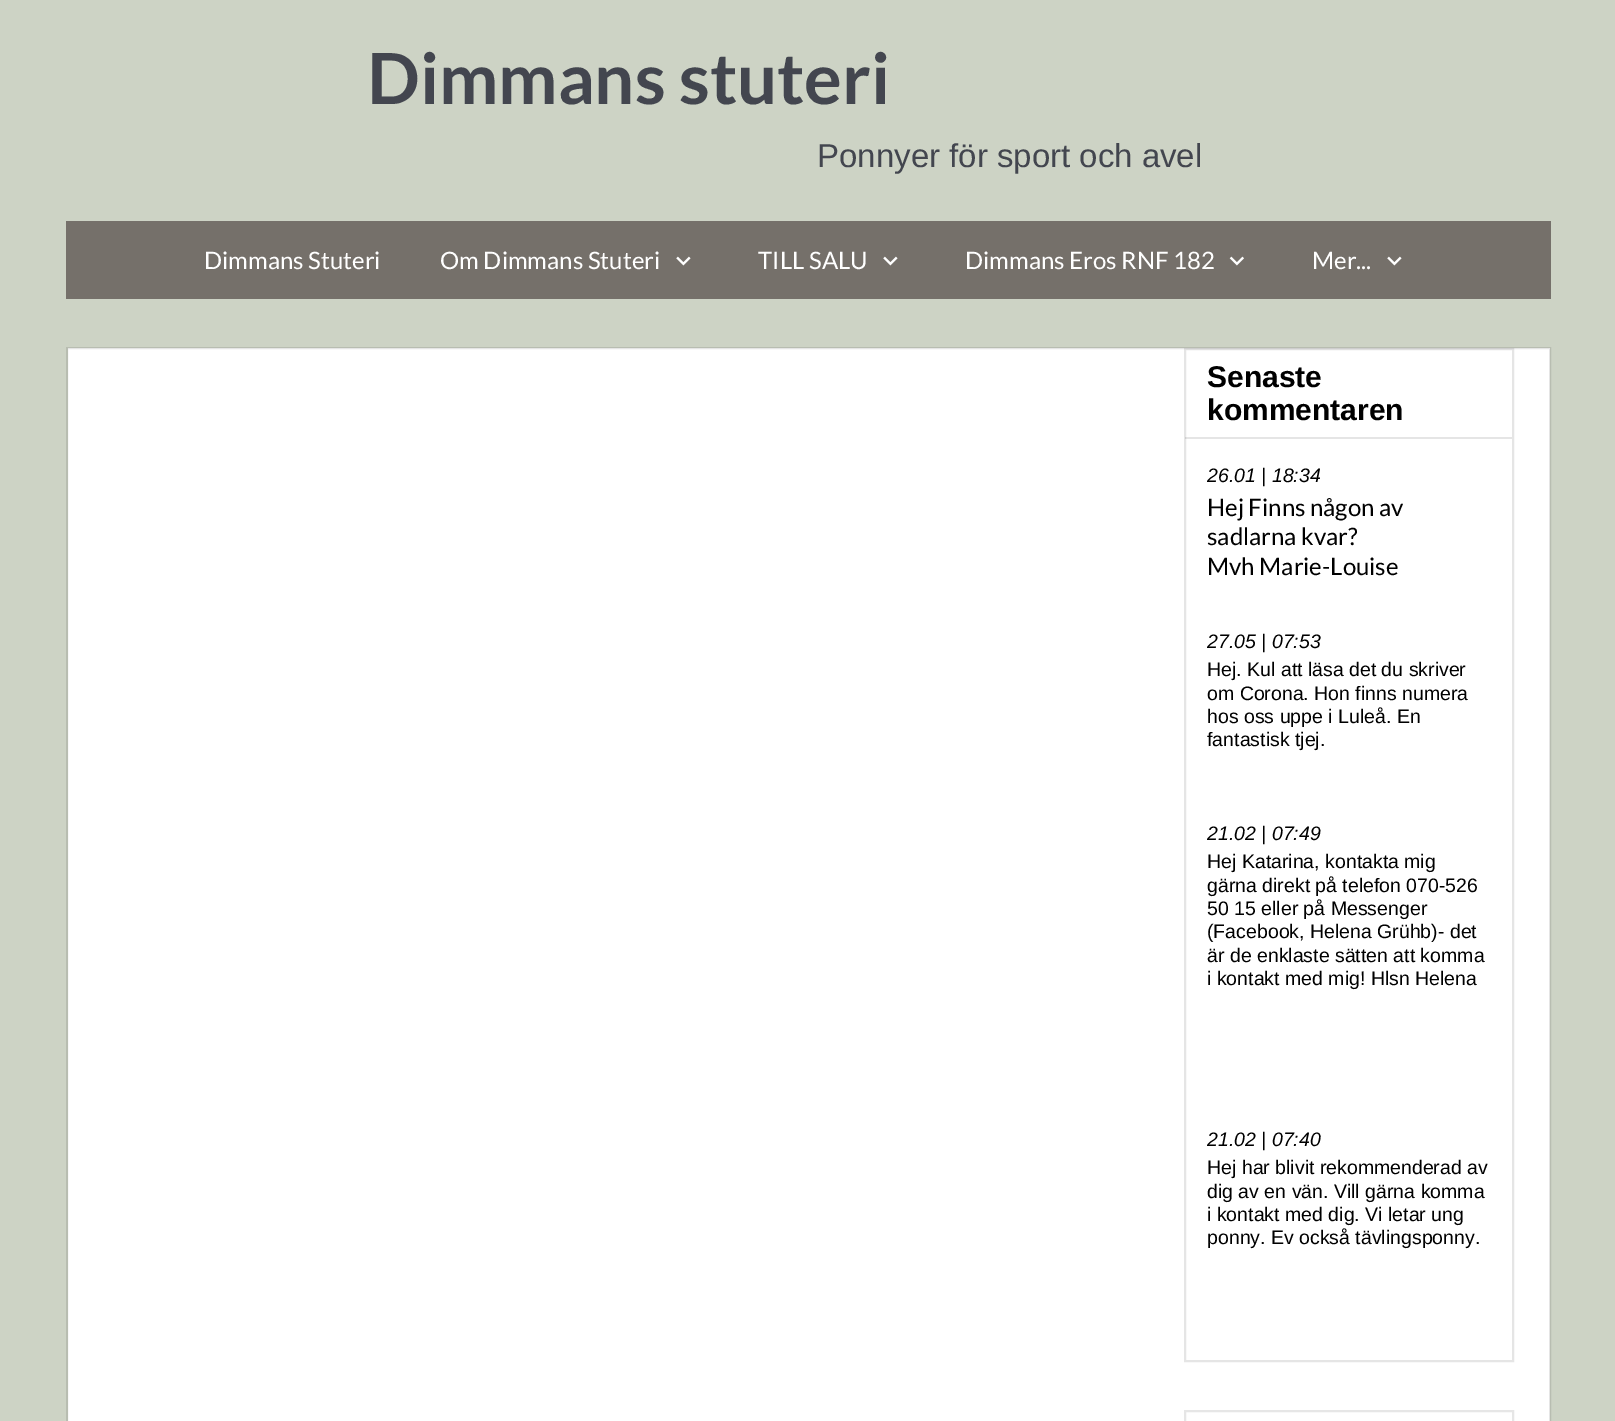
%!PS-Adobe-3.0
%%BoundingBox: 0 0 1615 1421
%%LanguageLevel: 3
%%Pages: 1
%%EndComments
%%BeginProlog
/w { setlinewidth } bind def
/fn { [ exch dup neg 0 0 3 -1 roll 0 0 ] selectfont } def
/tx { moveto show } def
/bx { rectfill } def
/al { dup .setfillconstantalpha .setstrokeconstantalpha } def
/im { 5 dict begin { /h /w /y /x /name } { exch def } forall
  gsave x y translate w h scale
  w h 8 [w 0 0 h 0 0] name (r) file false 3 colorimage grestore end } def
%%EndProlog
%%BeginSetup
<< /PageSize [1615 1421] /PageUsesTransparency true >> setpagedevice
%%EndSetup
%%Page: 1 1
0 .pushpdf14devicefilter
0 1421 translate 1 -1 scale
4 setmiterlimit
0.804 0.827 0.773 setrgbcolor
0 0 1615 1421 bx
/Lato-Bold 70.5 fn
0.263 0.275 0.31 setrgbcolor
(Dimmans stuteri) 367 104 tx
/LiberationSans-Regular 33 fn
(Ponnyer för sport och avel) 817 167 tx
0.459 0.439 0.416 setrgbcolor
66 221 1485 78 bx
/Lato-Regular 24 fn
1 setgray
(Dimmans Stuteri) 204 269 tx
(Om Dimmans Stuteri) 440 269 tx
(image0.raw) 676 256 15 10 im
(TILL SALU) 758 269 tx
(image0.raw) 883 256 15 10 im
(Dimmans Eros RNF 182) 965 269 tx
(image1.raw) 1229 256 15 10 im
(Mer...) 1312 269 tx
(image0.raw) 1387 256 15 10 im
68 348 1482 1073 bx
0.1 al
0 setgray
2 w
67 348 1483 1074 rectstroke
1185 349 328 1012 rectstroke
1185 437 327 2 bx
/LiberationSans-Bold 30 fn
1 al
(Senaste) 1207 387 tx
(kommentaren) 1207 420 tx
/LiberationSans-Italic 19.5 fn
(26.01 | 18:34) 1207 482 tx
/Lato-Regular 24 fn
(Hej Finns någon av) 1207 516 tx
(sadlarna kvar?) 1207 545 tx
(Mvh Marie-Louise) 1207 575 tx
/LiberationSans-Italic 19.5 fn
(27.05 | 07:53) 1207 648 tx
/LiberationSans-Regular 19.5 fn
(Hej. Kul att läsa det du skriver) 1207 676 tx
(om Corona. Hon finns numera) 1207 700 tx
(hos oss uppe i Luleå. En) 1207 723 tx
(fantastisk tjej.) 1207 746 tx
/LiberationSans-Italic 19.5 fn
(21.02 | 07:49) 1207 840 tx
/LiberationSans-Regular 19.5 fn
(Hej Katarina, kontakta mig) 1207 868 tx
(gärna direkt på telefon 070-526) 1207 892 tx
(50 15 eller på Messenger) 1207 915 tx
(\(Facebook, Helena Grühb\)- det) 1207 938 tx
(är de enklaste sätten att komma) 1207 962 tx
(i kontakt med mig! Hlsn Helena) 1207 985 tx
/LiberationSans-Italic 19.5 fn
(21.02 | 07:40) 1207 1146 tx
/LiberationSans-Regular 19.5 fn
(Hej har blivit rekommenderad av) 1207 1174 tx
(dig av en vän. Vill gärna komma) 1207 1198 tx
(i kontakt med dig. Vi letar ung) 1207 1221 tx
(ponny. Ev också tävlingsponny.) 1207 1244 tx
0.902 setgray
1185 1411 328 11 rectstroke
.poppdf14devicefilter showpage
%%EOF
